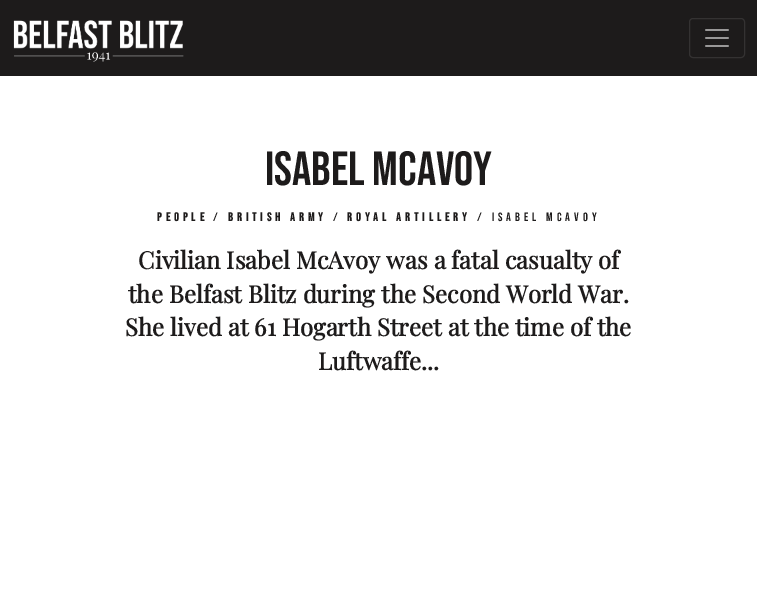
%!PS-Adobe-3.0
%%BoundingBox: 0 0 757 601
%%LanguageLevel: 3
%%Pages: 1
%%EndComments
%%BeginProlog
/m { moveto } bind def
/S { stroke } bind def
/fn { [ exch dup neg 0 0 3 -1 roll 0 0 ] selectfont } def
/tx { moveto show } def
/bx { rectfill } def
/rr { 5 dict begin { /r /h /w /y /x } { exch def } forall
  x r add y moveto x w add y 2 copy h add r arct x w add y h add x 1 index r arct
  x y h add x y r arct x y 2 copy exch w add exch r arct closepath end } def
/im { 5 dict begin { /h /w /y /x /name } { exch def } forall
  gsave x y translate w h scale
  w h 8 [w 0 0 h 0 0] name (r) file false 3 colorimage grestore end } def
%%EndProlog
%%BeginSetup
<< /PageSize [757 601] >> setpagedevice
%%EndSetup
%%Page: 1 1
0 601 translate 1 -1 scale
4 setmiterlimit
1 setgray
0 0 757 601 bx
0.114 0.106 0.106 setrgbcolor
0 0 757 76 bx
(image0.raw) 13 20 171 42 im
0.204 0.196 0.196 setrgbcolor
689.5 18.5 55 39 3.5 rr S
(image1.raw) 705 29 24 18 im
/BebasNeue-Regular 48 fn
0.114 0.106 0.106 setrgbcolor
(ISABEL MCAVOY) 265 185 tx
/BebasNeue-Bold 12 fn
157 221 m 4 0 (People) ashow
/BebasNeue-Regular 12 fn
213 221 m 4 0 (/) ashow
/BebasNeue-Bold 12 fn
228 221 m 4 0 (British Army) ashow
/BebasNeue-Regular 12 fn
333 221 m 4 0 (/) ashow
/BebasNeue-Bold 12 fn
347 221 m 4 0 (Royal Artillery) ashow
/BebasNeue-Regular 12 fn
477 221 m 4 0 (/ Isabel McAvoy) ashow
/PlayfairDisplay-Bold 24 fn
(Civilian Isabel McAvoy was a fatal casualty of) 138 269 tx
(the Belfast Blitz during the Second World War.) 128 303 tx
(She lived at 61 Hogarth Street at the time of the) 125 336 tx
(Luftwaffe...) 318 370 tx
showpage
%%EOF
